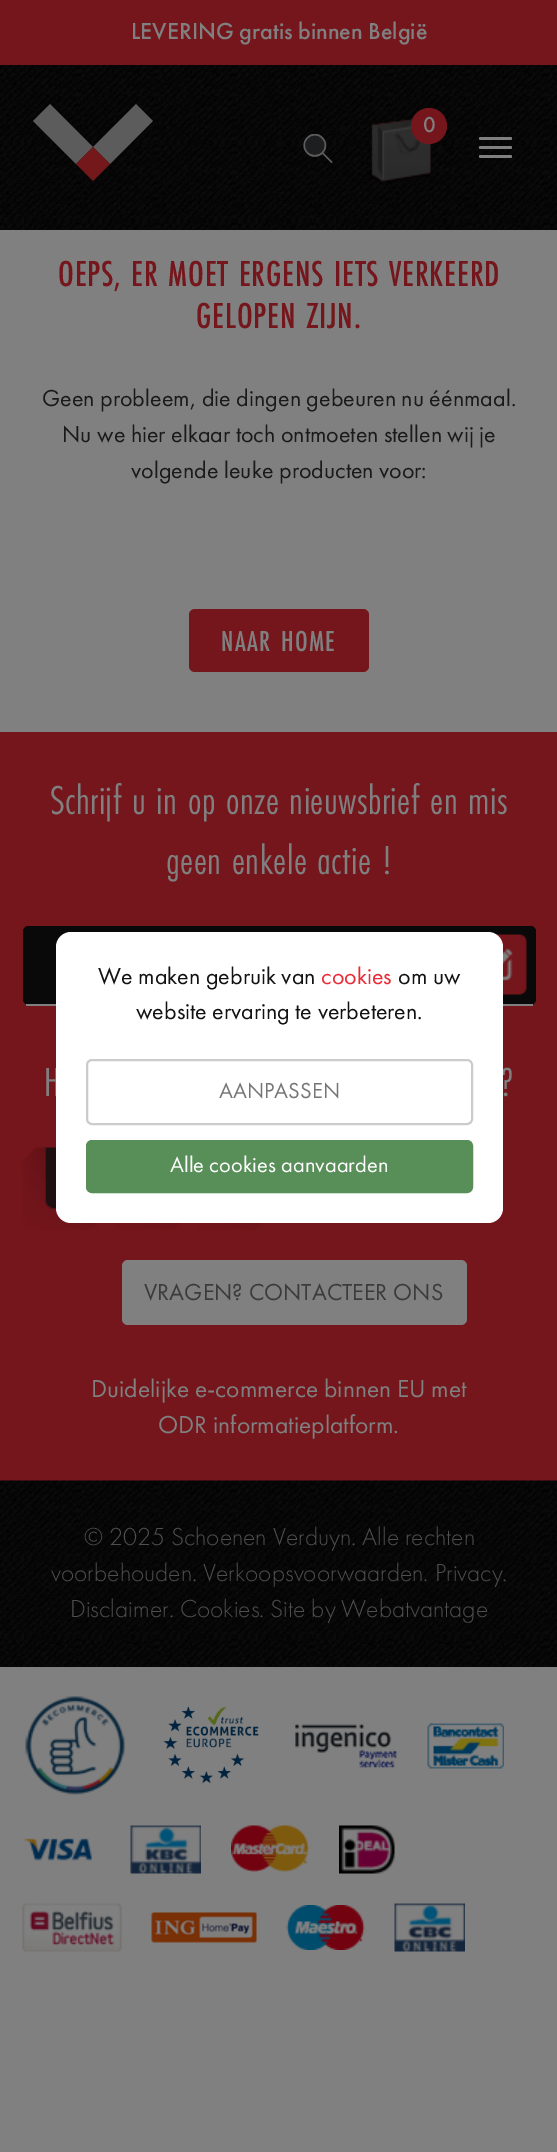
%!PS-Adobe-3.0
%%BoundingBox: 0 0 557 2152
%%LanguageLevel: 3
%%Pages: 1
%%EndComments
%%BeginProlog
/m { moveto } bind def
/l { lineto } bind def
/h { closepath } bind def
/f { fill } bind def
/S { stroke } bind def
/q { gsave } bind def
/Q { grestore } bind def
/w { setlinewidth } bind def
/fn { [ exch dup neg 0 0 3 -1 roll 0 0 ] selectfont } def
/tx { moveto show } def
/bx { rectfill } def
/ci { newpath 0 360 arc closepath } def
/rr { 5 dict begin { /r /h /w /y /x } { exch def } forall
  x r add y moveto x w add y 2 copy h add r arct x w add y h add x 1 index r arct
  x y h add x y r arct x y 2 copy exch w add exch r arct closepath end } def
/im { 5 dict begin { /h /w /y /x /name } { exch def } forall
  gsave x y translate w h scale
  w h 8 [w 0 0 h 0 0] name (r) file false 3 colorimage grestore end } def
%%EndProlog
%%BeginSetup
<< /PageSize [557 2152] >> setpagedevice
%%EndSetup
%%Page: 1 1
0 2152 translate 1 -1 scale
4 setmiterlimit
0.502 setgray
0 0 557 2152 bx
0.455 0.086 0.11 setrgbcolor
0 0 557 65 bx
/FuturaPT-Medium 24 fn
0.502 setgray
(LEVERING gratis binnen België) 131 39 tx
0.035 setgray
0 229 557 1 bx
(image0.raw) 0 65 557 165 im
0.365 0.361 0.361 setrgbcolor
33 121 m 50 104 l 93 147 l 76 164 l h f
93 147 m 136 104 l 153 121 l 110 164 l h f
0.455 0.094 0.11 setrgbcolor
76 164 m 93 147 l 110 164 l 93 181 l h f
(image1.raw) 367 118 64 65 im
0.455 0.086 0.11 setrgbcolor
429 126 18 ci f
/FuturaPT-Medium 22.5 fn
0.502 setgray
(0) 423 132 tx
0.035 setgray
343 130 4 ci f
276 140 8 7 3.5 rr f
(image2.raw) 303 133 30 30 im
440.5 149.5 3.5 ci f
0.502 setgray
479 137 33 3 1.5 rr f
479 146 33 3 1.5 rr f
479 155 33 3 1.5 rr f
/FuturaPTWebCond-Medium 37.5 fn
0.455 0.086 0.11 setrgbcolor
58 286 m 0.75 0 (OEPS, ER MOET ERGENS IETS VERKEERD) ashow
196 328 m 0.75 0 (GELOPEN ZIJN.) ashow
/FuturaPT-Regular 24 fn
0.102 setgray
(Geen probleem, die dingen gebeuren nu éénmaal.) 42 406 tx
(Nu we hier elkaar toch ontmoeten stellen wij je) 62 442 tx
(volgende leuke producten voor:) 131 478 tx
0.455 0.086 0.11 setrgbcolor
189 609 180 63 6 rr f
/FuturaPTWebCond-Medium 30 fn
0.502 setgray
221 651 m 1.5 0 (NAAR HOME) ashow
0.455 0.086 0.11 setrgbcolor
0 732 557 749 bx
/FuturaPTWebCond-Regular 42 fn
0.502 setgray
50 814 m 0.4 0 (Schrijf u in op onze nieuwsbrief en mis) ashow
166 874 m 0.4 0 (geen enkele actie !) ashow
0.035 setgray
23 926 513 79 6 rr f
0.502 setgray
26 1004 507 2 bx
0.035 setgray
23 926 513 78 6 rr f
(image3.raw) 495 934 32 61 im
0.502 setgray
44 1096 m 0.4 0 (H) ashow
500 1096 m 0.4 0 (?) ashow
(image4.raw) 22 1147 76 83 im
(image5.raw) 115 1223 66 7 im
(image6.raw) 198 1223 65 7 im
122 1260 345 65 6 rr f
/FuturaPT-Regular 24 fn
0.235 0.231 0.231 setrgbcolor
(VRAGEN? CONTACTEER ONS) 144 1300 tx
/FuturaPT-Regular 25.5 fn
0.502 setgray
(Duidelijke e-commerce binnen EU met) 91 1397 tx
(ODR informatieplatform.) 158 1433 tx
0.035 setgray
0 1666 557 1 bx
(image7.raw) 0 1480 557 187 im
/FuturaPT-Light 25.5 fn
0.31 setgray
(© 2025 Schoenen Verduyn. Alle rechten) 84 1545 tx
(voorbehouden. Verkoopsvoorwaarden. Privacy.) 51 1581 tx
(Disclaimer. Cookies. Site by Webatvantage) 70 1617 tx
(image8.raw) 25 1696 100 99 im
(image9.raw) 163 1706 96 78 im
(image10.raw) 295 1724 102 44 im
(image11.raw) 427 1723 77 46 im
(image12.raw) 23 1838 69 23 im
(image13.raw) 130 1825 71 49 im
(image14.raw) 231 1825 78 47 im
(image15.raw) 339 1825 56 49 im
(image16.raw) 22 1903 100 49 im
(image17.raw) 151 1912 106 31 im
(image18.raw) 286 1905 79 45 im
(image19.raw) 394 1903 71 49 im
1 setgray
56 932 447 291 15 rr f
/FuturaPT-Regular 24 fn
0.071 setgray
(We maken gebruik van) 98 984 tx
0.906 0.169 0.216 setrgbcolor
(cookies) 321 984 tx
0.071 setgray
(om uw) 398 984 tx
(website ervaring te verbeteren.) 136 1019 tx
0.8 setgray
2 w
87 1060 385 64 5 rr S
/FuturaPT-Regular 22.5 fn
0.467 0.463 0.463 setrgbcolor
(AANPASSEN) 219 1098 tx
0.345 0.557 0.345 setrgbcolor
87 1141 385 51 5 rr q f Q
S
1 setgray
(Alle cookies aanvaarden) 170 1172 tx
showpage
%%EOF
